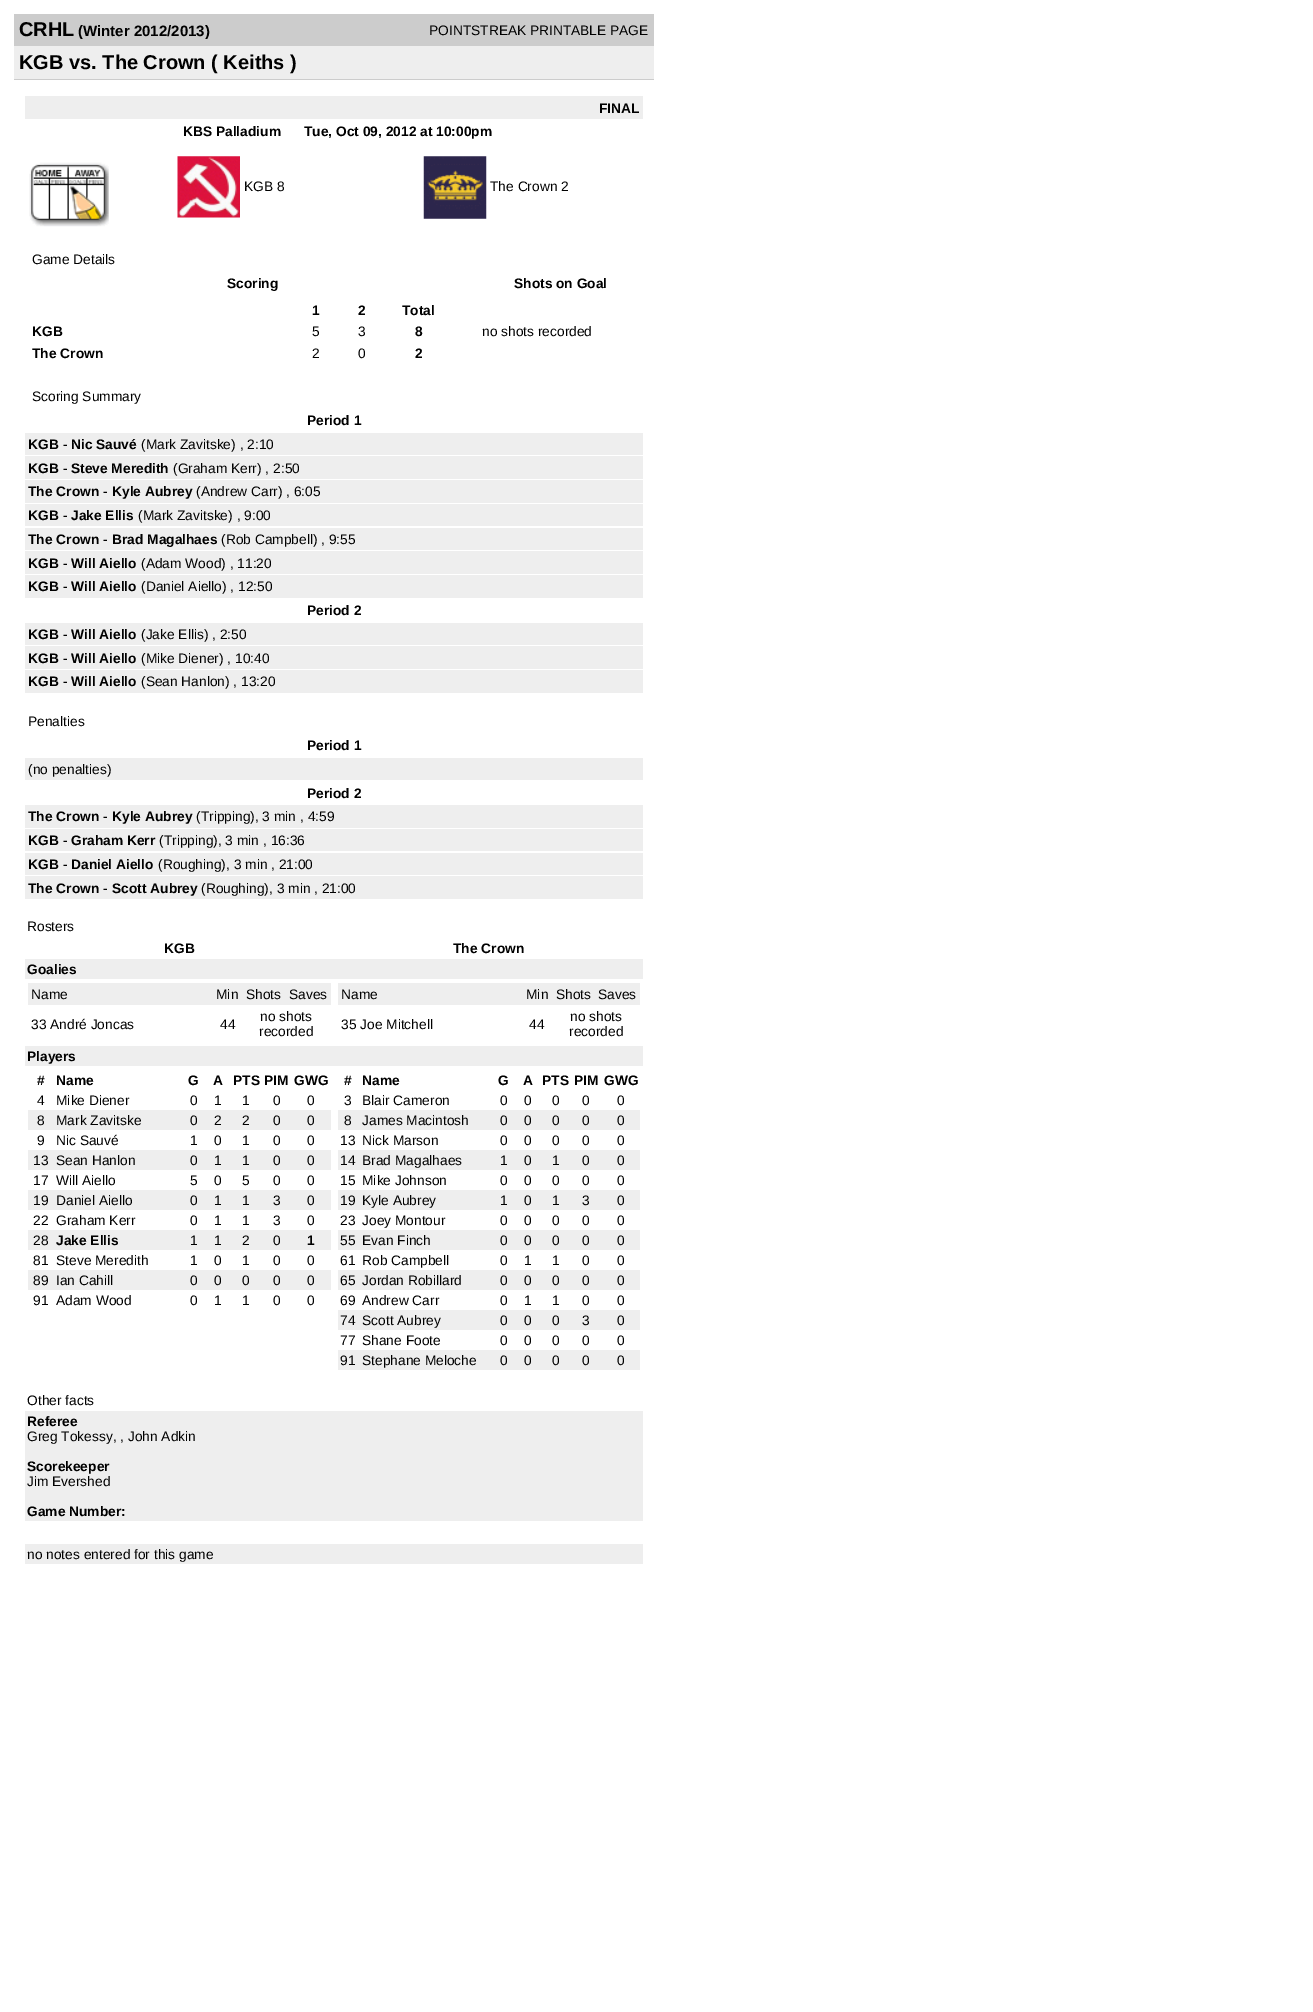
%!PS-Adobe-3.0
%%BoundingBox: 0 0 1313 2012
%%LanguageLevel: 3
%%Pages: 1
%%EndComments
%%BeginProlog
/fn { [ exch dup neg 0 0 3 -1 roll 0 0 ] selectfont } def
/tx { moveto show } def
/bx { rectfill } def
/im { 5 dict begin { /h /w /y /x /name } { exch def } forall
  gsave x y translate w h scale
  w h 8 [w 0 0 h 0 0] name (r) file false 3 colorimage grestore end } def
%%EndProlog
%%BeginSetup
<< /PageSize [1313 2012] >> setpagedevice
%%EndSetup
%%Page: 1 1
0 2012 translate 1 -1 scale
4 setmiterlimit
1 setgray
0 0 1313 2012 bx
0.8 setgray
14 14 640 32 bx
/LiberationSans-Bold 20 fn
0 setgray
(CRHL) 19 36 tx
/LiberationSans-Bold 15 fn
(\(Winter 2012/2013\)) 78 36 tx
/LiberationSans-Regular 13.75 fn
(POINTSTREAK PRINTABLE PAGE) 429 35 tx
0.933 setgray
14 46 640 33 bx
/LiberationSans-Bold 20 fn
0 setgray
(KGB vs. The Crown \( Keiths \)) 19 69 tx
0.8 setgray
14 79 640 1 bx
0.933 setgray
25 96 618 23 bx
/LiberationSans-Bold 13.75 fn
0 setgray
(FINAL) 599 113 tx
(KBS Palladium) 183 136 tx
(Tue, Oct 09, 2012 at 10:00pm) 304 136 tx
(image0.raw) 29 162 80 65 im
(image1.raw) 177 156 63 62 im
/LiberationSans-Regular 13.75 fn
(KGB 8) 244 191 tx
(image2.raw) 423 156 64 63 im
(The Crown 2) 490 191 tx
(Game Details) 32 264 tx
/LiberationSans-Bold 13.75 fn
(Scoring) 227 288 tx
(Shots on Goal) 514 288 tx
(1) 312 315 tx
(2) 358 315 tx
(Total) 402 315 tx
(KGB) 32 336 tx
/LiberationSans-Regular 13.75 fn
(5) 312 336 tx
(3) 358 336 tx
/LiberationSans-Bold 13.75 fn
(8) 415 336 tx
(The Crown) 32 358 tx
/LiberationSans-Regular 13.75 fn
(2) 312 358 tx
(0) 358 358 tx
/LiberationSans-Bold 13.75 fn
(2) 415 358 tx
/LiberationSans-Regular 13.75 fn
(no shots recorded) 482 336 tx
(Scoring Summary) 32 401 tx
/LiberationSans-Bold 13.75 fn
(Period 1) 307 425 tx
0.933 setgray
25 433 618 22 bx
0 setgray
(KGB) 28 449 tx
/LiberationSans-Regular 13.75 fn
(-) 63 449 tx
/LiberationSans-Bold 13.75 fn
(Nic Sauvé) 71 449 tx
/LiberationSans-Regular 13.75 fn
(\(Mark Zavitske\) , 2:10) 141 449 tx
0.933 setgray
25 456 618 23 bx
/LiberationSans-Bold 13.75 fn
0 setgray
(KGB) 28 473 tx
/LiberationSans-Regular 13.75 fn
(-) 63 473 tx
/LiberationSans-Bold 13.75 fn
(Steve Meredith) 71 473 tx
/LiberationSans-Regular 13.75 fn
(\(Graham Kerr\) , 2:50) 173 473 tx
0.933 setgray
25 480 618 23 bx
/LiberationSans-Bold 13.75 fn
0 setgray
(The Crown) 28 496 tx
/LiberationSans-Regular 13.75 fn
(-) 103 496 tx
/LiberationSans-Bold 13.75 fn
(Kyle Aubrey) 112 496 tx
/LiberationSans-Regular 13.75 fn
(\(Andrew Carr\) , 6:05) 196 496 tx
0.933 setgray
25 504 618 22 bx
/LiberationSans-Bold 13.75 fn
0 setgray
(KGB) 28 520 tx
/LiberationSans-Regular 13.75 fn
(-) 63 520 tx
/LiberationSans-Bold 13.75 fn
(Jake Ellis) 71 520 tx
/LiberationSans-Regular 13.75 fn
(\(Mark Zavitske\) , 9:00) 138 520 tx
0.933 setgray
25 528 618 22 bx
/LiberationSans-Bold 13.75 fn
0 setgray
(The Crown) 28 544 tx
/LiberationSans-Regular 13.75 fn
(-) 103 544 tx
/LiberationSans-Bold 13.75 fn
(Brad Magalhaes) 112 544 tx
/LiberationSans-Regular 13.75 fn
(\(Rob Campbell\) , 9:55) 221 544 tx
0.933 setgray
25 551 618 23 bx
/LiberationSans-Bold 13.75 fn
0 setgray
(KGB) 28 568 tx
/LiberationSans-Regular 13.75 fn
(-) 63 568 tx
/LiberationSans-Bold 13.75 fn
(Will Aiello) 71 568 tx
/LiberationSans-Regular 13.75 fn
(\(Adam Wood\) , 11:20) 141 568 tx
0.933 setgray
25 575 618 23 bx
/LiberationSans-Bold 13.75 fn
0 setgray
(KGB) 28 591 tx
/LiberationSans-Regular 13.75 fn
(-) 63 591 tx
/LiberationSans-Bold 13.75 fn
(Will Aiello) 71 591 tx
/LiberationSans-Regular 13.75 fn
(\(Daniel Aiello\) , 12:50) 141 591 tx
/LiberationSans-Bold 13.75 fn
(Period 2) 307 615 tx
0.933 setgray
25 623 618 22 bx
0 setgray
(KGB) 28 639 tx
/LiberationSans-Regular 13.75 fn
(-) 63 639 tx
/LiberationSans-Bold 13.75 fn
(Will Aiello) 71 639 tx
/LiberationSans-Regular 13.75 fn
(\(Jake Ellis\) , 2:50) 141 639 tx
0.933 setgray
25 646 618 23 bx
/LiberationSans-Bold 13.75 fn
0 setgray
(KGB) 28 663 tx
/LiberationSans-Regular 13.75 fn
(-) 63 663 tx
/LiberationSans-Bold 13.75 fn
(Will Aiello) 71 663 tx
/LiberationSans-Regular 13.75 fn
(\(Mike Diener\) , 10:40) 141 663 tx
0.933 setgray
25 670 618 23 bx
/LiberationSans-Bold 13.75 fn
0 setgray
(KGB) 28 686 tx
/LiberationSans-Regular 13.75 fn
(-) 63 686 tx
/LiberationSans-Bold 13.75 fn
(Will Aiello) 71 686 tx
/LiberationSans-Regular 13.75 fn
(\(Sean Hanlon\) , 13:20) 141 686 tx
(Penalties) 28 726 tx
/LiberationSans-Bold 13.75 fn
(Period 1) 307 750 tx
0.933 setgray
25 758 618 22 bx
/LiberationSans-Regular 13.75 fn
0 setgray
(\(no penalties\)) 28 774 tx
/LiberationSans-Bold 13.75 fn
(Period 2) 307 798 tx
0.933 setgray
25 805 618 23 bx
0 setgray
(The Crown) 28 821 tx
/LiberationSans-Regular 13.75 fn
(-) 103 821 tx
/LiberationSans-Bold 13.75 fn
(Kyle Aubrey) 112 821 tx
/LiberationSans-Regular 13.75 fn
(\(Tripping\), 3 min , 4:59) 196 821 tx
0.933 setgray
25 829 618 22 bx
/LiberationSans-Bold 13.75 fn
0 setgray
(KGB) 28 845 tx
/LiberationSans-Regular 13.75 fn
(-) 63 845 tx
/LiberationSans-Bold 13.75 fn
(Graham Kerr) 71 845 tx
/LiberationSans-Regular 13.75 fn
(\(Tripping\), 3 min , 16:36) 159 845 tx
0.933 setgray
25 853 618 22 bx
/LiberationSans-Bold 13.75 fn
0 setgray
(KGB) 28 869 tx
/LiberationSans-Regular 13.75 fn
(-) 63 869 tx
/LiberationSans-Bold 13.75 fn
(Daniel Aiello) 71 869 tx
/LiberationSans-Regular 13.75 fn
(\(Roughing\), 3 min , 21:00) 158 869 tx
0.933 setgray
25 876 618 23 bx
/LiberationSans-Bold 13.75 fn
0 setgray
(The Crown) 28 893 tx
/LiberationSans-Regular 13.75 fn
(-) 103 893 tx
/LiberationSans-Bold 13.75 fn
(Scott Aubrey) 112 893 tx
/LiberationSans-Regular 13.75 fn
(\(Roughing\), 3 min , 21:00) 201 893 tx
(Rosters) 27 931 tx
/LiberationSans-Bold 13.75 fn
(KGB) 164 953 tx
(The Crown) 453 953 tx
0.933 setgray
25 959 618 20 bx
0 setgray
(Goalies) 27 974 tx
0.933 setgray
28 983 303 22 bx
/LiberationSans-Regular 13.75 fn
0 setgray
(Name) 31 999 tx
(Min) 216 999 tx
(Shots) 246 999 tx
(Saves) 289 999 tx
(33 André Joncas) 31 1029 tx
(44) 220 1029 tx
(no shots) 260 1021 tx
(recorded) 259 1036 tx
0.933 setgray
338 983 302 22 bx
0 setgray
(Name) 341 999 tx
(Min) 526 999 tx
(Shots) 556 999 tx
(Saves) 598 999 tx
(35 Joe Mitchell) 341 1029 tx
(44) 529 1029 tx
(no shots) 570 1021 tx
(recorded) 569 1036 tx
0.933 setgray
25 1046 618 20 bx
/LiberationSans-Bold 13.75 fn
0 setgray
(Players) 27 1061 tx
(#) 37 1085 tx
(Name) 56 1085 tx
(G) 188 1085 tx
(A) 213 1085 tx
(PTS) 233 1085 tx
(PIM) 264 1085 tx
(GWG) 294 1085 tx
/LiberationSans-Regular 13.75 fn
(4) 37 1105 tx
(Mike Diener) 56 1105 tx
(0) 190 1105 tx
(1) 214 1105 tx
(1) 242 1105 tx
(0) 273 1105 tx
(0) 307 1105 tx
0.933 setgray
28 1110 303 20 bx
0 setgray
(8) 37 1125 tx
(Mark Zavitske) 56 1125 tx
(0) 190 1125 tx
(2) 214 1125 tx
(2) 242 1125 tx
(0) 273 1125 tx
(0) 307 1125 tx
(9) 37 1145 tx
(Nic Sauvé) 56 1145 tx
(1) 190 1145 tx
(0) 214 1145 tx
(1) 242 1145 tx
(0) 273 1145 tx
(0) 307 1145 tx
0.933 setgray
28 1150 303 20 bx
0 setgray
(13) 33 1165 tx
(Sean Hanlon) 56 1165 tx
(0) 190 1165 tx
(1) 214 1165 tx
(1) 242 1165 tx
(0) 273 1165 tx
(0) 307 1165 tx
(17) 33 1185 tx
(Will Aiello) 56 1185 tx
(5) 190 1185 tx
(0) 214 1185 tx
(5) 242 1185 tx
(0) 273 1185 tx
(0) 307 1185 tx
0.933 setgray
28 1190 303 20 bx
0 setgray
(19) 33 1205 tx
(Daniel Aiello) 56 1205 tx
(0) 190 1205 tx
(1) 214 1205 tx
(1) 242 1205 tx
(3) 273 1205 tx
(0) 307 1205 tx
(22) 33 1225 tx
(Graham Kerr) 56 1225 tx
(0) 190 1225 tx
(1) 214 1225 tx
(1) 242 1225 tx
(3) 273 1225 tx
(0) 307 1225 tx
0.933 setgray
28 1230 303 20 bx
0 setgray
(28) 33 1245 tx
/LiberationSans-Bold 13.75 fn
(Jake Ellis) 56 1245 tx
/LiberationSans-Regular 13.75 fn
(1) 190 1245 tx
(1) 214 1245 tx
(2) 242 1245 tx
(0) 273 1245 tx
/LiberationSans-Bold 13.75 fn
(1) 307 1245 tx
/LiberationSans-Regular 13.75 fn
(81) 33 1265 tx
(Steve Meredith) 56 1265 tx
(1) 190 1265 tx
(0) 214 1265 tx
(1) 242 1265 tx
(0) 273 1265 tx
(0) 307 1265 tx
0.933 setgray
28 1270 303 20 bx
0 setgray
(89) 33 1285 tx
(Ian Cahill) 56 1285 tx
(0) 190 1285 tx
(0) 214 1285 tx
(0) 242 1285 tx
(0) 273 1285 tx
(0) 307 1285 tx
(91) 33 1305 tx
(Adam Wood) 56 1305 tx
(0) 190 1305 tx
(1) 214 1305 tx
(1) 242 1305 tx
(0) 273 1305 tx
(0) 307 1305 tx
/LiberationSans-Bold 13.75 fn
(#) 344 1085 tx
(Name) 362 1085 tx
(G) 498 1085 tx
(A) 523 1085 tx
(PTS) 542 1085 tx
(PIM) 574 1085 tx
(GWG) 604 1085 tx
/LiberationSans-Regular 13.75 fn
(3) 344 1105 tx
(Blair Cameron) 362 1105 tx
(0) 500 1105 tx
(0) 524 1105 tx
(0) 552 1105 tx
(0) 582 1105 tx
(0) 617 1105 tx
0.933 setgray
338 1110 302 20 bx
0 setgray
(8) 344 1125 tx
(James Macintosh) 362 1125 tx
(0) 500 1125 tx
(0) 524 1125 tx
(0) 552 1125 tx
(0) 582 1125 tx
(0) 617 1125 tx
(13) 340 1145 tx
(Nick Marson) 362 1145 tx
(0) 500 1145 tx
(0) 524 1145 tx
(0) 552 1145 tx
(0) 582 1145 tx
(0) 617 1145 tx
0.933 setgray
338 1150 302 20 bx
0 setgray
(14) 340 1165 tx
(Brad Magalhaes) 362 1165 tx
(1) 500 1165 tx
(0) 524 1165 tx
(1) 552 1165 tx
(0) 582 1165 tx
(0) 617 1165 tx
(15) 340 1185 tx
(Mike Johnson) 362 1185 tx
(0) 500 1185 tx
(0) 524 1185 tx
(0) 552 1185 tx
(0) 582 1185 tx
(0) 617 1185 tx
0.933 setgray
338 1190 302 20 bx
0 setgray
(19) 340 1205 tx
(Kyle Aubrey) 362 1205 tx
(1) 500 1205 tx
(0) 524 1205 tx
(1) 552 1205 tx
(3) 582 1205 tx
(0) 617 1205 tx
(23) 340 1225 tx
(Joey Montour) 362 1225 tx
(0) 500 1225 tx
(0) 524 1225 tx
(0) 552 1225 tx
(0) 582 1225 tx
(0) 617 1225 tx
0.933 setgray
338 1230 302 20 bx
0 setgray
(55) 340 1245 tx
(Evan Finch) 362 1245 tx
(0) 500 1245 tx
(0) 524 1245 tx
(0) 552 1245 tx
(0) 582 1245 tx
(0) 617 1245 tx
(61) 340 1265 tx
(Rob Campbell) 362 1265 tx
(0) 500 1265 tx
(1) 524 1265 tx
(1) 552 1265 tx
(0) 582 1265 tx
(0) 617 1265 tx
0.933 setgray
338 1270 302 20 bx
0 setgray
(65) 340 1285 tx
(Jordan Robillard) 362 1285 tx
(0) 500 1285 tx
(0) 524 1285 tx
(0) 552 1285 tx
(0) 582 1285 tx
(0) 617 1285 tx
(69) 340 1305 tx
(Andrew Carr) 362 1305 tx
(0) 500 1305 tx
(1) 524 1305 tx
(1) 552 1305 tx
(0) 582 1305 tx
(0) 617 1305 tx
0.933 setgray
338 1310 302 20 bx
0 setgray
(74) 340 1325 tx
(Scott Aubrey) 362 1325 tx
(0) 500 1325 tx
(0) 524 1325 tx
(0) 552 1325 tx
(3) 582 1325 tx
(0) 617 1325 tx
(77) 340 1345 tx
(Shane Foote) 362 1345 tx
(0) 500 1345 tx
(0) 524 1345 tx
(0) 552 1345 tx
(0) 582 1345 tx
(0) 617 1345 tx
0.933 setgray
338 1350 302 20 bx
0 setgray
(91) 340 1365 tx
(Stephane Meloche) 362 1365 tx
(0) 500 1365 tx
(0) 524 1365 tx
(0) 552 1365 tx
(0) 582 1365 tx
(0) 617 1365 tx
(Other facts) 27 1405 tx
0.933 setgray
25 1411 618 110 bx
/LiberationSans-Bold 13.75 fn
0 setgray
(Referee) 27 1426 tx
/LiberationSans-Regular 13.75 fn
(Greg Tokessy, , John Adkin) 27 1441 tx
/LiberationSans-Bold 13.75 fn
(Scorekeeper) 27 1471 tx
/LiberationSans-Regular 13.75 fn
(Jim Evershed) 27 1486 tx
/LiberationSans-Bold 13.75 fn
(Game Number:) 27 1516 tx
0.933 setgray
25 1544 618 20 bx
/LiberationSans-Regular 13.75 fn
0 setgray
(no notes entered for this game) 27 1559 tx
showpage
%%EOF
